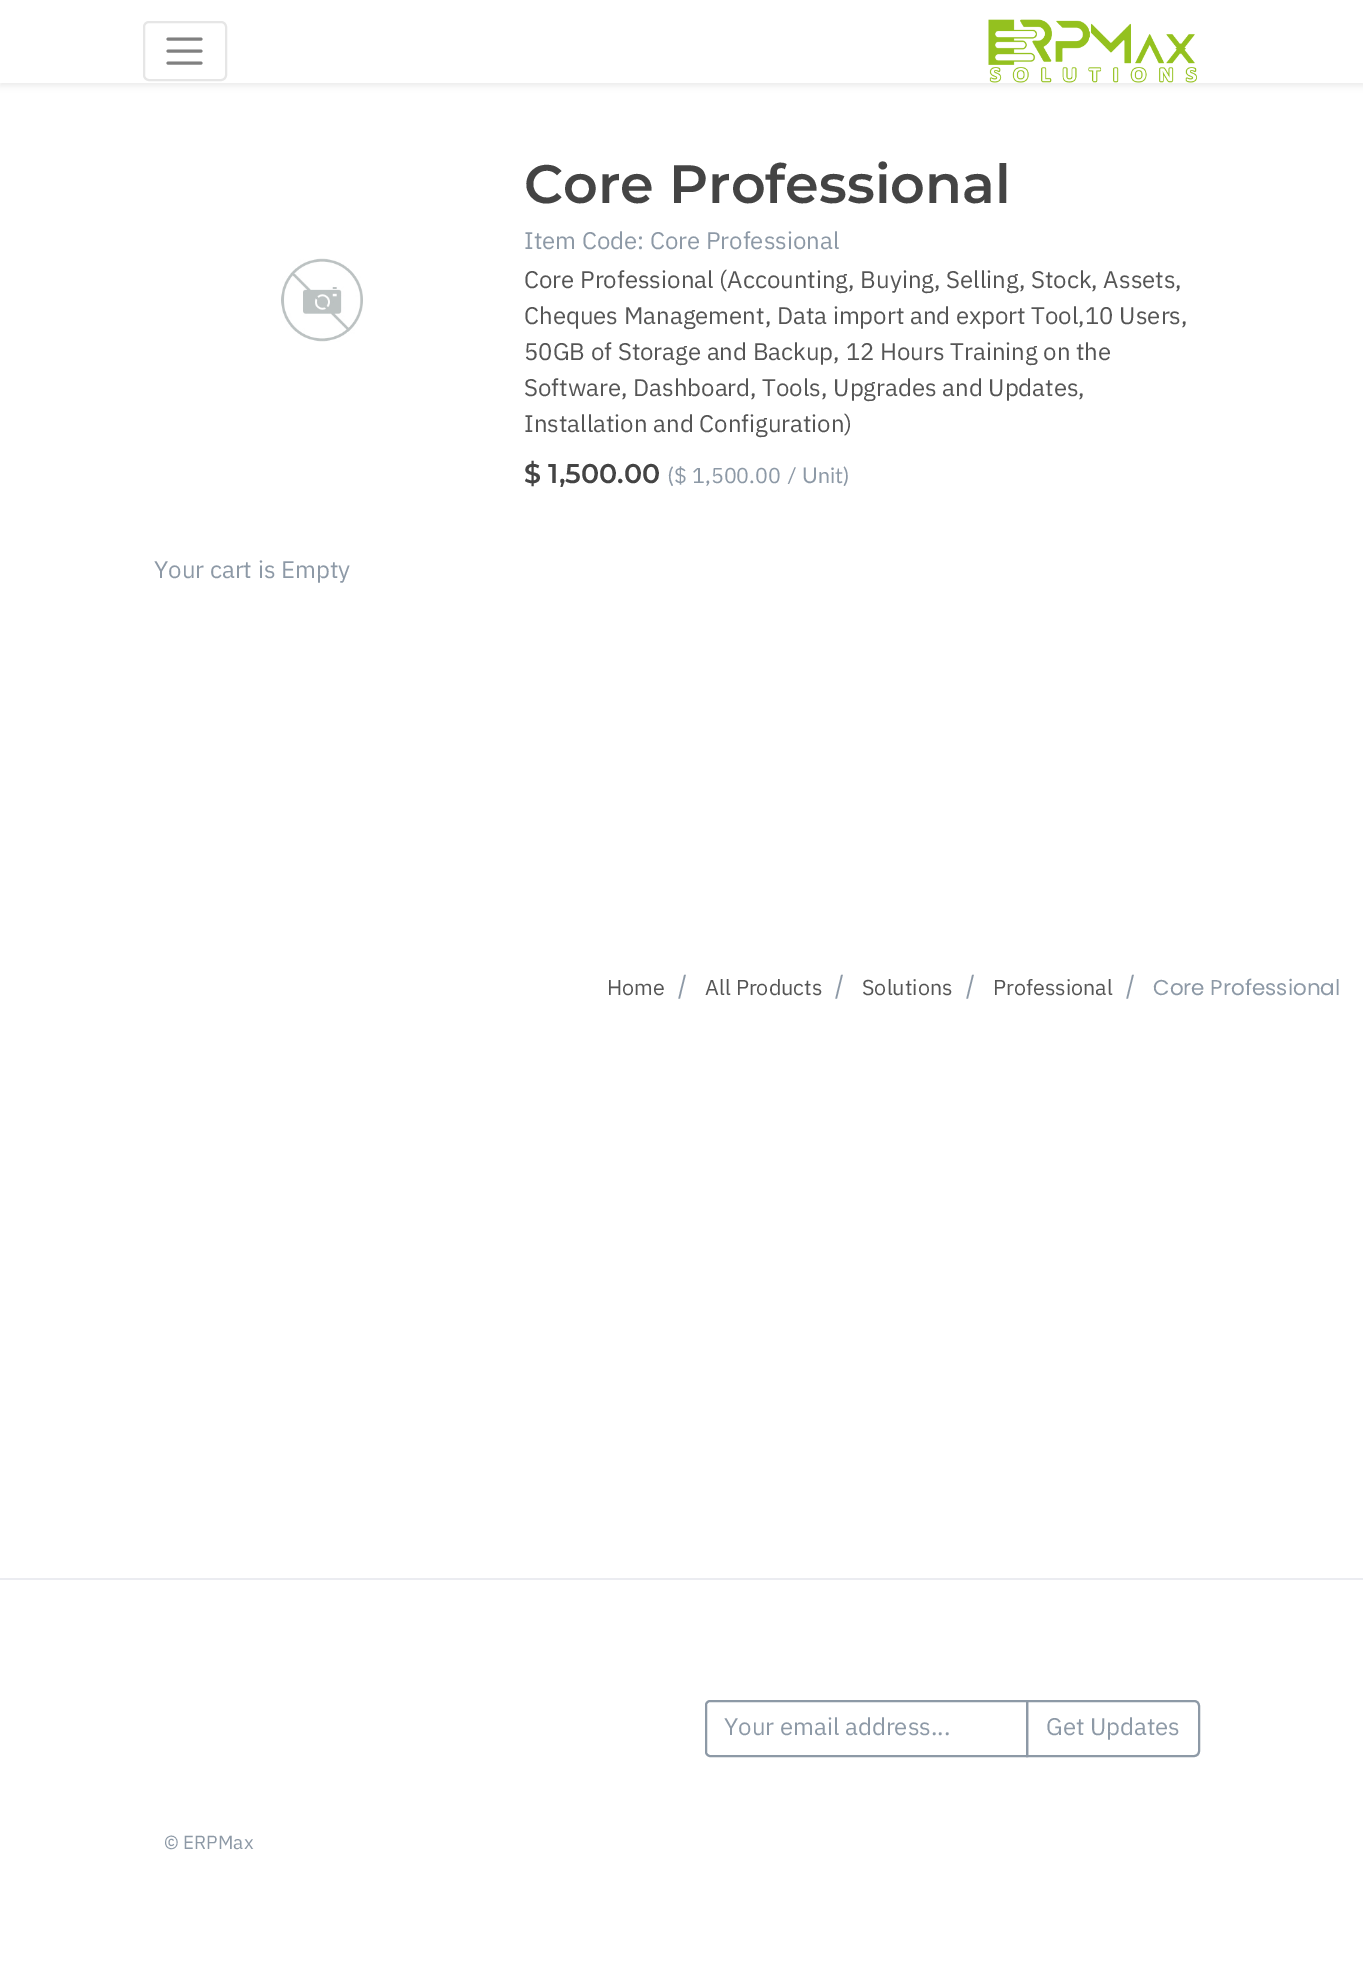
%!PS-Adobe-3.0
%%BoundingBox: 0 0 1363 1976
%%LanguageLevel: 3
%%Pages: 1
%%EndComments
%%BeginProlog
/m { moveto } bind def
/l { lineto } bind def
/c { curveto } bind def
/h { closepath } bind def
/S { stroke } bind def
/w { setlinewidth } bind def
/fn { [ exch dup neg 0 0 3 -1 roll 0 0 ] selectfont } def
/tx { moveto show } def
/bx { rectfill } def
/al { dup .setfillconstantalpha .setstrokeconstantalpha } def
/rr { 5 dict begin { /r /h /w /y /x } { exch def } forall
  x r add y moveto x w add y 2 copy h add r arct x w add y h add x 1 index r arct
  x y h add x y r arct x y 2 copy exch w add exch r arct closepath end } def
/sh { 12 dict begin { /a /b /q /h /w /y /x } { exch def } forall gsave /was 0 def
  9 -2 -9 { dup b mul 4 div /e exch def 1 sub .425 mul 2.718 exch exp 1 add a .99 .min exch div /now exch def
    1 1 now sub 1 was sub div sub al /was now def
    w h .min e 2 mul add 0 gt { x e sub y e sub w e 2 mul add h e 2 mul add
      q e add b .6 mul add w h .min 2 div e add .min 0 .max rr fill } if } for grestore end } def
/im { 5 dict begin { /h /w /y /x /name } { exch def } forall
  gsave x y translate w h scale
  w h 8 [w 0 0 h 0 0] name (r) file false 3 colorimage grestore end } def
%%EndProlog
%%BeginSetup
<< /PageSize [1363 1976] /PageUsesTransparency true >> setpagedevice
%%EndSetup
%%Page: 1 1
0 .pushpdf14devicefilter
0 1976 translate 1 -1 scale
4 setmiterlimit
1 setgray
0 0 1363 1976 bx
0 setgray
0 3 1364 83 0 3 0.07 sh
1 setgray
0 0 1363 83 bx
0.902 setgray
2 w
144 22 82 58 5 rr S
0.502 setgray
3 w
1 setlinecap
168 39 m 201 39 l 168 51 m 201 51 l 168 63 m 201 63 l S
(image0.raw) 988 19 209 64 im
(image1.raw) 281 258 82 84 im
/Montserrat-SemiBold 54 fn
0.267 setgray
(Core Professional) 524 203 tx
/IBMPlexSansArabic-Regular 24 fn
0.553 0.6 0.651 setrgbcolor
(Item Code: Core Professional) 524 249 tx
0.333 setgray
(Core Professional \(Accounting, Buying, Selling, Stock, Assets,) 524 288 tx
(Cheques Management, Data import and export Tool,10 Users,) 524 324 tx
(50GB of Storage and Backup, 12 Hours Training on the) 524 360 tx
(Software, Dashboard, Tools, Upgrades and Updates,) 524 396 tx
(Installation and Configuration\)) 524 432 tx
/Montserrat-SemiBold 27 fn
0.267 setgray
($ 1,500.00) 524 483 tx
/Lato-Regular 21.5 fn
0.553 0.6 0.651 setrgbcolor
(\() 668 483 tx
/IBMPlexSansArabic-Regular 21.5 fn
($ 1,500.00) 674 483 tx
/Lato-Regular 21.5 fn
(/ Unit\)) 787 483 tx
/IBMPlexSansArabic-Regular 24 fn
(Your cart is Empty) 154 578 tx
/IBMPlexSansArabic-Regular 21.5 fn
0.333 setgray
(Home) 607 995 tx
/Poppins-Regular 21.5 fn
0.553 0.6 0.651 setrgbcolor
(/) 677 995 tx
/IBMPlexSansArabic-Regular 21.5 fn
0.333 setgray
(All Products) 705 995 tx
/Poppins-Regular 21.5 fn
0.553 0.6 0.651 setrgbcolor
(/) 834 995 tx
/IBMPlexSansArabic-Regular 21.5 fn
0.333 setgray
(Solutions) 862 995 tx
/Poppins-Regular 21.5 fn
0.553 0.6 0.651 setrgbcolor
(/) 965 995 tx
/IBMPlexSansArabic-Regular 21.5 fn
0.333 setgray
(Professional) 993 995 tx
/Poppins-Regular 21.5 fn
0.553 0.6 0.651 setrgbcolor
(/) 1125 995 tx
(Core Professional) 1153 995 tx
0.922 0.925 0.945 setrgbcolor
0 1578 1363 2 bx
0.553 0.6 0.651 setrgbcolor
2 w
0 setlinecap
710 1701 m 1027 1701 l 1027 1756 l 710 1756 l 708 1756 706 1754 706 1752 c 706 1705 l 706 1703 708 1701 710 1701 c h S
/IBMPlexSansArabic-Regular 24 fn
(Your email address...) 724 1735 tx
1027 1701 m 1194 1701 l 1197 1701 1199 1703 1199 1706 c 1199 1751 l 1199 1754 1197 1756 1194 1756 c 1027 1756 l h S
(Get Updates) 1046 1735 tx
/IBMPlexSansArabic-Regular 19 fn
(© ERPMax) 164 1849 tx
.poppdf14devicefilter showpage
%%EOF
